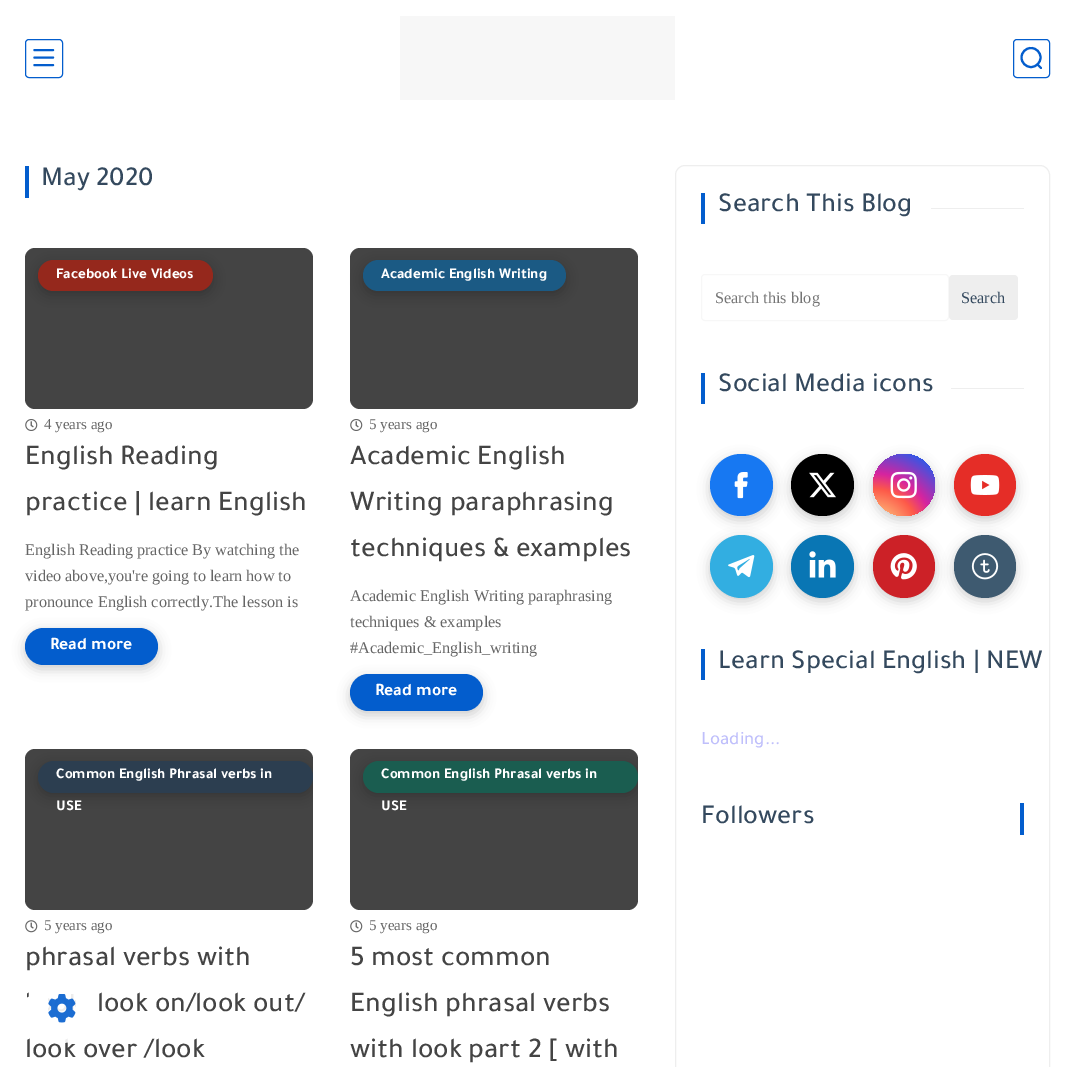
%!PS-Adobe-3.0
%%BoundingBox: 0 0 1074 1067
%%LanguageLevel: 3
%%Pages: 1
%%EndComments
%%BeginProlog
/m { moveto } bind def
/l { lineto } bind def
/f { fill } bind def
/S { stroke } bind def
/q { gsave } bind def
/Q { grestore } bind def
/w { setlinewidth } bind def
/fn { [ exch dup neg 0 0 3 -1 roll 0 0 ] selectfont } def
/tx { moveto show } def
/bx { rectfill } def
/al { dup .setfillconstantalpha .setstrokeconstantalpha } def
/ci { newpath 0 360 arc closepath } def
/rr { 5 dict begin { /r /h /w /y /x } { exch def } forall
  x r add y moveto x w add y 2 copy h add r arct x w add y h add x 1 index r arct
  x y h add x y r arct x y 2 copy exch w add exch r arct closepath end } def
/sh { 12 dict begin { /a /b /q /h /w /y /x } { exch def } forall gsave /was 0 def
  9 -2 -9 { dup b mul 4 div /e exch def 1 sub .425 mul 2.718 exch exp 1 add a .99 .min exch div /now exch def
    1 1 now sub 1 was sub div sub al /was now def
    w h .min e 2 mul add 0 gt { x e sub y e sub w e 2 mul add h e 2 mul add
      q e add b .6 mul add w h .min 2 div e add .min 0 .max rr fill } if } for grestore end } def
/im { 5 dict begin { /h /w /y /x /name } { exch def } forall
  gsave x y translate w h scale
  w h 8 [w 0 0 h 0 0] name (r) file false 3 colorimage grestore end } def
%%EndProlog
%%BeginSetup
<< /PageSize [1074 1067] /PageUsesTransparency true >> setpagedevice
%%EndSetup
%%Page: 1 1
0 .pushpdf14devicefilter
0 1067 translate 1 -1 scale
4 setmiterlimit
1 setgray
0 0 1074 1067 bx
0.012 0.365 0.804 setrgbcolor
25.5 39.5 37 38 3.5 rr S
2.1 w
1 setlinecap
1 setlinejoin
34.5 57.5 m 53 57.5 l 34.5 50 m 53 50 l 34.5 65 m 53 65 l S
0.969 setgray
400 16 275 84 bx
0.012 0.365 0.804 setrgbcolor
1 w
0 setlinecap
0 setlinejoin
1013.5 39.5 36 38 3.5 rr S
2.1 w
1031 57.5 9.5 ci S
1 setlinecap
1 setlinejoin
1037.5 64.5 m 1041 68 l S
25 166 4 32 bx
/Tajawal-Medium 27.5 fn
0.204 0.286 0.369 setrgbcolor
(May 2020) 41 185 tx
0.267 setgray
25 248 288 161 10 rr f
0 setgray
38 264 175 31 15.5 6 0.2 sh
0.584 0.157 0.11 setrgbcolor
38 260 175 31 15.5 rr f
/Tajawal-Bold 15 fn
1 setgray
(Facebook Live Videos) 56 278 tx
(image0.raw) 25 419 13 12 im
/LiberationSerif-Regular 15 fn
0.4 setgray
(4 years ago) 44 429 tx
/Tajawal-Medium 28.75 fn
0.267 setgray
(English Reading) 25 464 tx
(practice | learn English) 25 510 tx
/LiberationSerif-Regular 16.25 fn
0.4 setgray
(English Reading practice By watching the) 25 555 tx
(video above,you're going to learn how to) 25 581 tx
(pronounce English correctly.The lesson is) 25 607 tx
0 setgray
25 631 133 38 19 6 0.2 sh
0.012 0.365 0.804 setrgbcolor
25 628 133 37 18.5 rr f
/Tajawal-Bold 17.5 fn
1 setgray
(Read more) 50 649 tx
0.267 setgray
350 248 288 161 10 rr f
0 setgray
363 264 203 31 15.5 6 0.2 sh
0.106 0.353 0.518 setrgbcolor
363 260 203 31 15.5 rr f
/Tajawal-Bold 15 fn
1 setgray
(Academic English Writing) 381 278 tx
(image0.raw) 350 419 13 12 im
/LiberationSerif-Regular 15 fn
0.4 setgray
(5 years ago) 369 429 tx
/Tajawal-Medium 28.75 fn
0.267 setgray
(Academic English) 350 464 tx
(Writing paraphrasing) 350 510 tx
(techniques & examples) 350 556 tx
/LiberationSerif-Regular 16.25 fn
0.4 setgray
(Academic English Writing paraphrasing) 350 601 tx
(techniques & examples) 350 627 tx
(#Academic_English_writing) 350 653 tx
0 setgray
350 678 133 37 18.5 6 0.2 sh
0.012 0.365 0.804 setrgbcolor
350 674 133 37 18.5 rr f
/Tajawal-Bold 17.5 fn
1 setgray
(Read more) 375 695 tx
0.267 setgray
25 749 288 161 10 rr f
q
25 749 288 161 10 rr clip newpath
0 setgray
38 765 275 31 15.5 6 0.2 sh
Q
0.173 0.243 0.314 setrgbcolor
38 761 275 32 16 rr f
/Tajawal-Bold 15 fn
1 setgray
(Common English Phrasal verbs in) 56 778 tx
(USE) 56 810 tx
(image1.raw) 25 920 13 13 im
/LiberationSerif-Regular 15 fn
0.4 setgray
(5 years ago) 44 930 tx
/Tajawal-Medium 28.75 fn
0.267 setgray
(phrasal verbs with) 25 965 tx
(') 25 1011 tx
(look on/look out/) 97 1011 tx
(look over /look) 25 1057 tx
350 749 288 161 10 rr f
q
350 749 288 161 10 rr clip newpath
0 setgray
363 765 275 31 15.5 6 0.2 sh
Q
0.102 0.365 0.314 setrgbcolor
363 761 275 32 16 rr f
/Tajawal-Bold 15 fn
1 setgray
(Common English Phrasal verbs in) 381 778 tx
(USE) 381 810 tx
(image1.raw) 350 920 13 13 im
/LiberationSerif-Regular 15 fn
0.4 setgray
(5 years ago) 369 930 tx
/Tajawal-Medium 28.75 fn
0.267 setgray
(5 most common) 350 965 tx
(English phrasal verbs) 350 1011 tx
(with look part 2 [ with) 350 1057 tx
0.933 setgray
1 w
0 setlinecap
0 setlinejoin
675.5 165.5 374 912 9.5 rr S
0.012 0.365 0.804 setrgbcolor
701 193 4 31 bx
/Tajawal-Medium 27.5 fn
0.204 0.286 0.369 setrgbcolor
(Search This Blog) 718 211 tx
0.933 setgray
931 208 93 1 bx
0.969 setgray
701.5 274.5 247 46 3.5 rr S
/LiberationSerif-Regular 16.25 fn
0.459 setgray
(Search this blog) 715 303 tx
0.933 setgray
949 275 69 45 4 rr f
0.204 0.286 0.369 setrgbcolor
(Search) 961 303 tx
0.012 0.365 0.804 setrgbcolor
701 373 4 31 bx
/Tajawal-Medium 27.5 fn
0.204 0.286 0.369 setrgbcolor
(Social Media icons) 718 391 tx
0.933 setgray
951 388 73 1 bx
0 setgray
710 458 63 62 31 6 0.2 sh
0.09 0.471 0.949 setrgbcolor
710 454 63 62 31 rr f
(image2.raw) 734 472 14 27 im
0 setgray
791 458 63 62 31 6 0.2 sh
791 454 63 62 31 rr f
(image3.raw) 809 472 27 26 im
873 458 62 62 31 6 0.2 sh
q 904 485 31 ci clip newpath 873 535 translate 103 103 scale
<< /ShadingType 3 /ColorSpace /DeviceRGB /Coords [0 0 0 0 0 1] /Extend [true true] /Function << /FunctionType 3 /Domain [0 1] /Functions [<< /FunctionType 2 /Domain [0 1] /C0 [0.992 0.957 0.592] /C1 [0.992 0.957 0.592] /N 1 >> << /FunctionType 2 /Domain [0 1] /C0 [0.992 0.957 0.592] /C1 [0.992 0.349 0.286] /N 1 >> << /FunctionType 2 /Domain [0 1] /C0 [0.992 0.349 0.286] /C1 [0.839 0.141 0.624] /N 1 >> << /FunctionType 2 /Domain [0 1] /C0 [0.839 0.141 0.624] /C1 [0.157 0.353 0.922] /N 1 >> << /FunctionType 2 /Domain [0 1] /C0 [0.157 0.353 0.922] /C1 [0.157 0.353 0.922] /N 1 >>] /Bounds [0.05 0.45 0.6 0.9] /Encode [0 1 0 1 0 1 0 1 0 1] >> >> shfill Q
(image4.raw) 890 471 27 28 im
954 458 62 62 31 6 0.2 sh
0.898 0.176 0.153 setrgbcolor
985 485 31 ci f
(image5.raw) 970 475 30 20 im
0 setgray
710 539 63 62 31 6 0.2 sh
0.196 0.682 0.882 setrgbcolor
741.5 566.5 31.5 ci f
(image6.raw) 728 555 27 23 im
0 setgray
791 539 63 62 31 6 0.2 sh
0.035 0.463 0.706 setrgbcolor
822.5 566.5 31.5 ci f
(image7.raw) 809 551 27 27 im
0 setgray
873 539 62 62 31 6 0.2 sh
0.8 0.129 0.153 setrgbcolor
873 535 62 63 31 rr f
(image8.raw) 890 553 27 27 im
0 setgray
954 539 62 62 31 6 0.2 sh
0.243 0.353 0.439 setrgbcolor
954 535 62 63 31 rr f
(image9.raw) 971 553 28 27 im
0.012 0.365 0.804 setrgbcolor
701 649 4 31 bx
0.204 0.286 0.369 setrgbcolor
(Learn Special English | NEW) 718 668 tx
/Tajawal-Medium 18.75 fn
0.749 0.749 0.984 setrgbcolor
(Loading...) 701 744 tx
0.012 0.365 0.804 setrgbcolor
1020 803 4 32 bx
/Tajawal-Medium 27.5 fn
0.204 0.286 0.369 setrgbcolor
(Followers) 701 823 tx
0.9 al
1 setgray
28 974 68 69 34 rr f
1 al
(image10.raw) 48 994 28 29 im
.poppdf14devicefilter showpage
%%EOF
